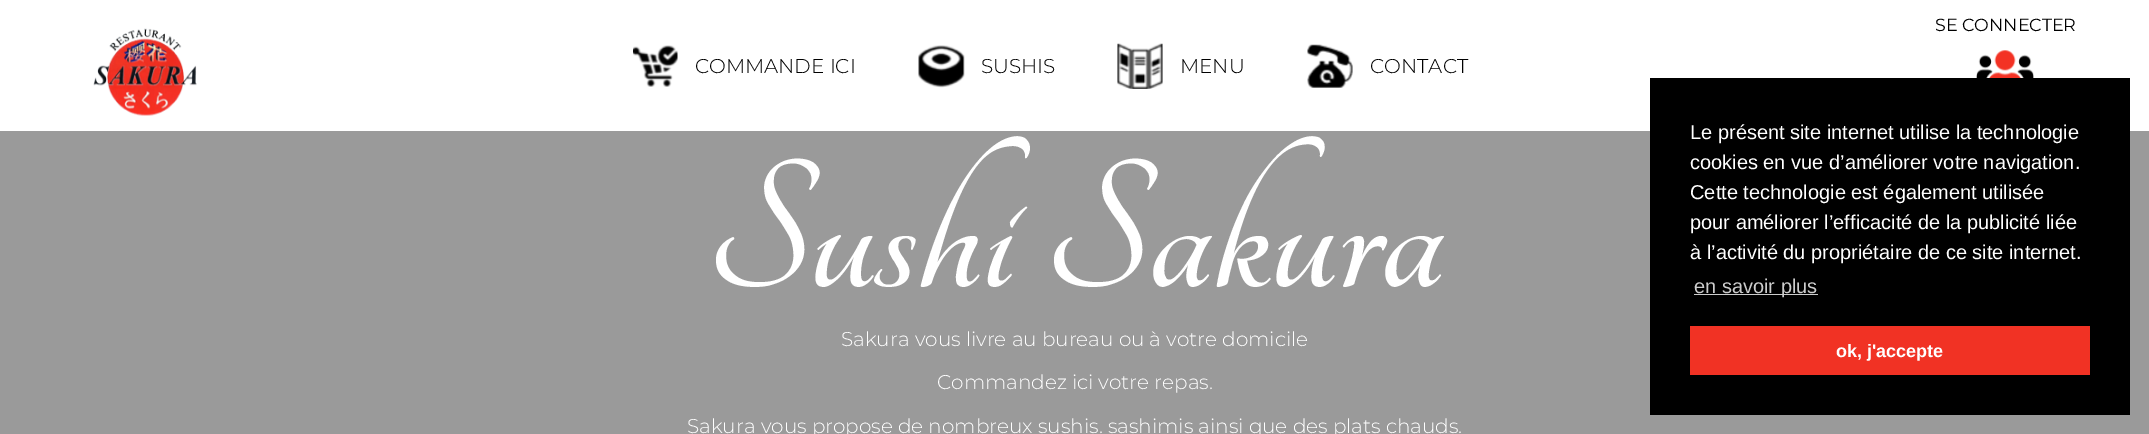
%!PS-Adobe-3.0
%%BoundingBox: 0 0 2149 434
%%LanguageLevel: 3
%%Pages: 1
%%EndComments
%%BeginProlog
/fn { [ exch dup neg 0 0 3 -1 roll 0 0 ] selectfont } def
/tx { moveto show } def
/bx { rectfill } def
/im { 5 dict begin { /h /w /y /x /name } { exch def } forall
  gsave x y translate w h scale
  w h 8 [w 0 0 h 0 0] name (r) file false 3 colorimage grestore end } def
%%EndProlog
%%BeginSetup
<< /PageSize [2149 434] >> setpagedevice
%%EndSetup
%%Page: 1 1
0 434 translate 1 -1 scale
4 setmiterlimit
1 setgray
0 0 2149 434 bx
/Montserrat-Regular 17.5 fn
0 setgray
(SE CONNECTER) 1935 31 tx
(image0.raw) 1976 50 58 28 im
(image1.raw) 93 28 104 88 im
(image2.raw) 633 45 45 42 im
/Montserrat-Light 20 fn
(COMMANDE ICI) 695 73 tx
(image3.raw) 918 45 47 43 im
(SUSHIS) 981 73 tx
(image4.raw) 1117 43 46 46 im
(MENU) 1180 73 tx
(image5.raw) 1307 44 46 44 im
(CONTACT) 1370 73 tx
0.604 setgray
0 131 2149 303 bx
/Tangerine-Bold 200 fn
1 setgray
(Sushi Sakura) 706 287 tx
/Montserrat-Light 20 fn
(Sakura vous livre au bureau ou à votre domicile) 841 346 tx
(Commandez ici votre repas.) 937 389 tx
(Sakura vous propose de nombreux sushis. sashimis ainsi que des plats chauds.) 687 433 tx
0 setgray
1650 78 480 337 bx
/LiberationSans-Regular 20 fn
1 setgray
(Le présent site internet utilise la technologie) 1690 139 tx
(cookies en vue d’améliorer votre navigation.) 1690 169 tx
(Cette technologie est également utilisée) 1690 199 tx
(pour améliorer l’efficacité de la publicité liée) 1690 229 tx
(à l’activité du propriétaire de ce site internet.) 1690 259 tx
0.8 setgray
1694 294 124 1 bx
(en savoir plus) 1694 293 tx
0.945 0.196 0.141 setrgbcolor
1690 326 400 49 bx
/LiberationSans-Bold 18 fn
1 setgray
(ok, j'accepte) 1836 357 tx
showpage
%%EOF
